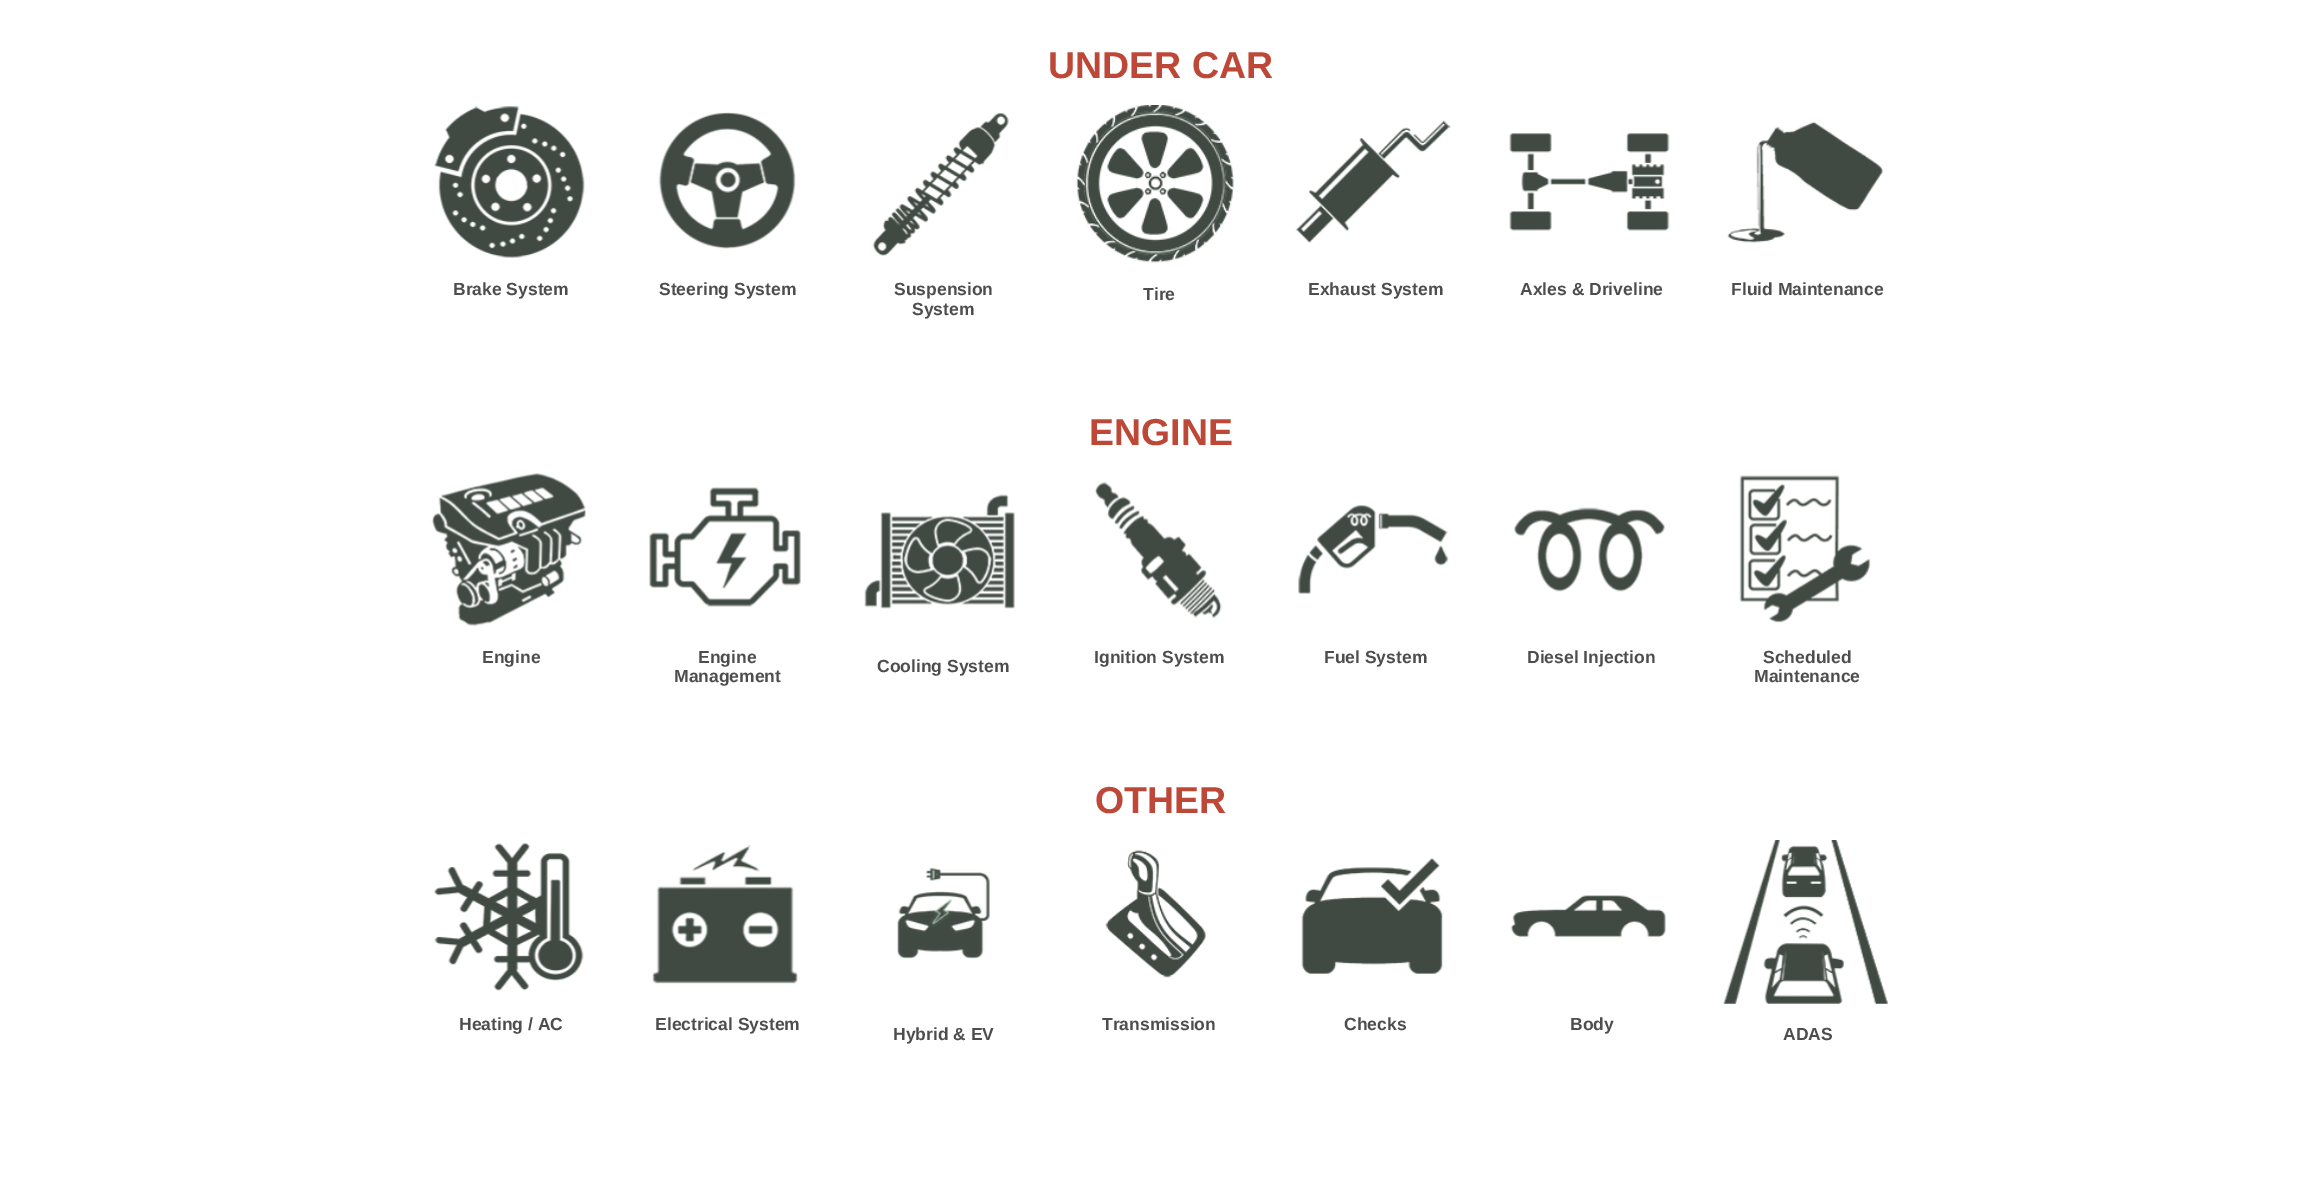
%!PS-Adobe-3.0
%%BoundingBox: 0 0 2315 1178
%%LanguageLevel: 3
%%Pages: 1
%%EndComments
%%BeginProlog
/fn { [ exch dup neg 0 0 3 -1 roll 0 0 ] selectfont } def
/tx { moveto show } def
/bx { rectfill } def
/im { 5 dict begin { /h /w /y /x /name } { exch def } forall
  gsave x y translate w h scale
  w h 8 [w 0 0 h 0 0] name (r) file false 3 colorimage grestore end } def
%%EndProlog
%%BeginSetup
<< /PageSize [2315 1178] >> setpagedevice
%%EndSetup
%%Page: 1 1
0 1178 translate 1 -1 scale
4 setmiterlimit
1 setgray
0 0 2315 1178 bx
/LiberationSans-Bold 37.5 fn
0.745 0.282 0.216 setrgbcolor
(UNDER CAR) 1048 78 tx
(image0.raw) 434 106 151 152 im
/LiberationSans-Bold 17.5 fn
0.302 setgray
(Brake System) 453 295 tx
(image1.raw) 658 112 138 137 im
(Steering System) 659 295 tx
(image2.raw) 872 113 137 143 im
(Suspension) 894 295 tx
(System) 912 315 tx
(image3.raw) 1076 105 159 158 im
(Tire) 1143 300 tx
(image4.raw) 1295 120 156 123 im
(Exhaust System) 1308 295 tx
(image5.raw) 1509 133 161 98 im
(Axles & Driveline) 1520 295 tx
(image6.raw) 1727 122 157 121 im
(Fluid Maintenance) 1731 295 tx
/LiberationSans-Bold 37.5 fn
0.745 0.282 0.216 setrgbcolor
(ENGINE) 1089 445 tx
(image7.raw) 431 473 155 153 im
/LiberationSans-Bold 17.5 fn
0.302 setgray
(Engine) 482 663 tx
(image8.raw) 649 487 152 120 im
(Engine) 698 663 tx
(Management) 674 682 tx
(image9.raw) 864 494 151 115 im
(Cooling System) 877 672 tx
(image10.raw) 1095 481 127 138 im
(Ignition System) 1094 663 tx
(image11.raw) 1298 505 151 89 im
(Fuel System) 1324 663 tx
(image12.raw) 1514 507 151 85 im
(Diesel Injection) 1527 663 tx
(image13.raw) 1739 475 132 148 im
(Scheduled) 1763 663 tx
(Maintenance) 1754 682 tx
/LiberationSans-Bold 37.5 fn
0.745 0.282 0.216 setrgbcolor
(OTHER) 1095 813 tx
(image14.raw) 434 843 150 148 im
/LiberationSans-Bold 17.5 fn
0.302 setgray
(Heating / AC) 459 1030 tx
(image15.raw) 652 844 146 140 im
(Electrical System) 655 1030 tx
(image16.raw) 897 868 93 91 im
(Hybrid & EV) 893 1040 tx
(image17.raw) 1105 850 101 128 im
(Transmission) 1102 1030 tx
(image18.raw) 1301 858 142 116 im
(Checks) 1344 1030 tx
(image19.raw) 1510 895 156 43 im
(Body) 1570 1030 tx
(image20.raw) 1723 840 165 164 im
(ADAS) 1783 1040 tx
showpage
%%EOF
